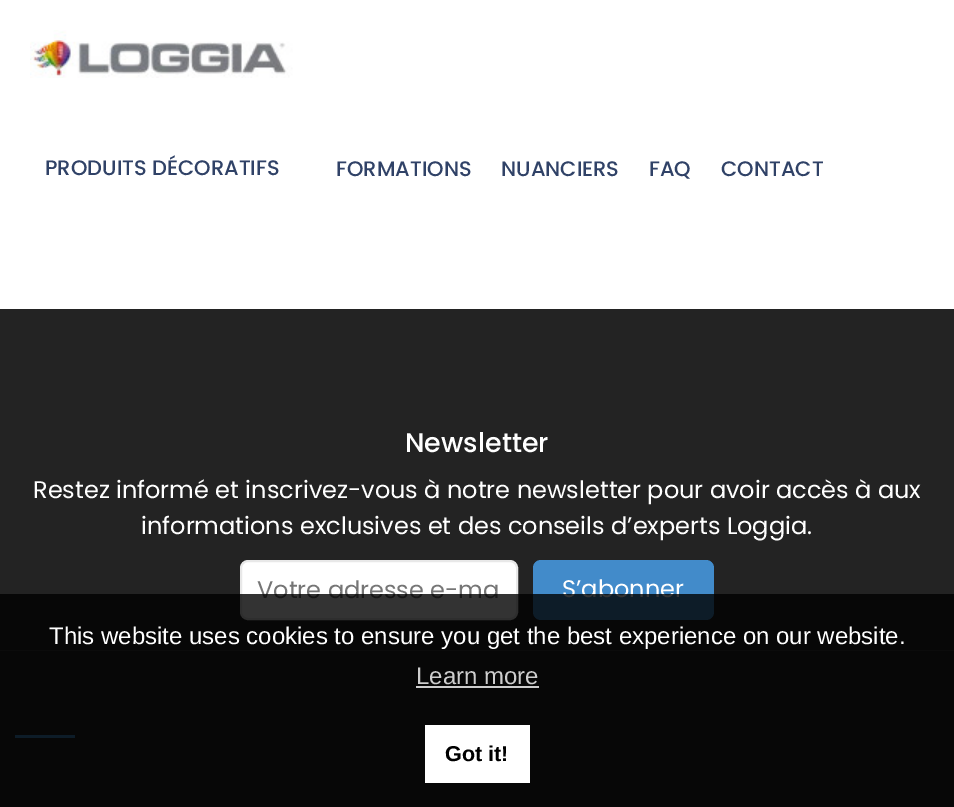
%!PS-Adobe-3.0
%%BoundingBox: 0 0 954 807
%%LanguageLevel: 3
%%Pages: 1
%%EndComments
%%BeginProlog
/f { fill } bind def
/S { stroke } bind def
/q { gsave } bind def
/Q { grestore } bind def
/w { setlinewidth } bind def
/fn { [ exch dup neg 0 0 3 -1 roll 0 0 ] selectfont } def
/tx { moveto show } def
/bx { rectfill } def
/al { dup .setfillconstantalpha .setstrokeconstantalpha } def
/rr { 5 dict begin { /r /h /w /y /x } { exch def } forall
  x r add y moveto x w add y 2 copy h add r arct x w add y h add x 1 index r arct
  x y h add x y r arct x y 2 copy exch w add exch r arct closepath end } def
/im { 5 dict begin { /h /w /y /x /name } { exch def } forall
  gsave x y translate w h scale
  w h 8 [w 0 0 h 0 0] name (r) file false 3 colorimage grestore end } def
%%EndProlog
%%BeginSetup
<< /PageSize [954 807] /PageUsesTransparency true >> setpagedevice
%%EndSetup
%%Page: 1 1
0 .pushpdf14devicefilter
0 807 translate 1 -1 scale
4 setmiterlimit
1 setgray
0 0 954 807 bx
(image0.raw) 30 30 263 48 im
/Poppins-Medium 21 fn
0.188 0.259 0.404 setrgbcolor
(PRODUITS DÉCORATIFS) 45 175 tx
(FORMATIONS) 336 176 tx
(NUANCIERS) 501 176 tx
(FAQ) 649 176 tx
(CONTACT) 721 176 tx
0.137 setgray
0 309 954 341 bx
0.224 setgray
0 650 954 1 bx
/Poppins-Medium 27 fn
1 setgray
(Newsletter) 405 452 tx
/Poppins-Regular 24 fn
(Restez informé et inscrivez-vous à notre newsletter pour avoir accès à aux) 33 498 tx
(informations exclusives et des conseils d’experts Loggia.) 141 534 tx
241 561 276 58 7 rr q f Q
0.91 setgray
2 w
S
0.459 setgray
(Votre adresse e-ma) 257 598 tx
0.259 0.545 0.792 setrgbcolor
533 560 181 60 8 rr f
1 setgray
(S’abonner) 562 597 tx
0.137 setgray
0 651 954 156 bx
0.259 0.545 0.792 setrgbcolor
15 735 60 3 bx
0.8 al
0 setgray
0 594 954 213 bx
/LiberationSans-Regular 24 fn
1 al
1 setgray
(This website uses cookies to ensure you get the best experience on our website.) 49 644 tx
0.804 setgray
(Learn more) 416 684 tx
416 686 123 2 bx
1 setgray
425 725 105 58 bx
/LiberationSans-Bold 21.5 fn
0 setgray
(Got it!) 445 761 tx
.poppdf14devicefilter showpage
%%EOF
